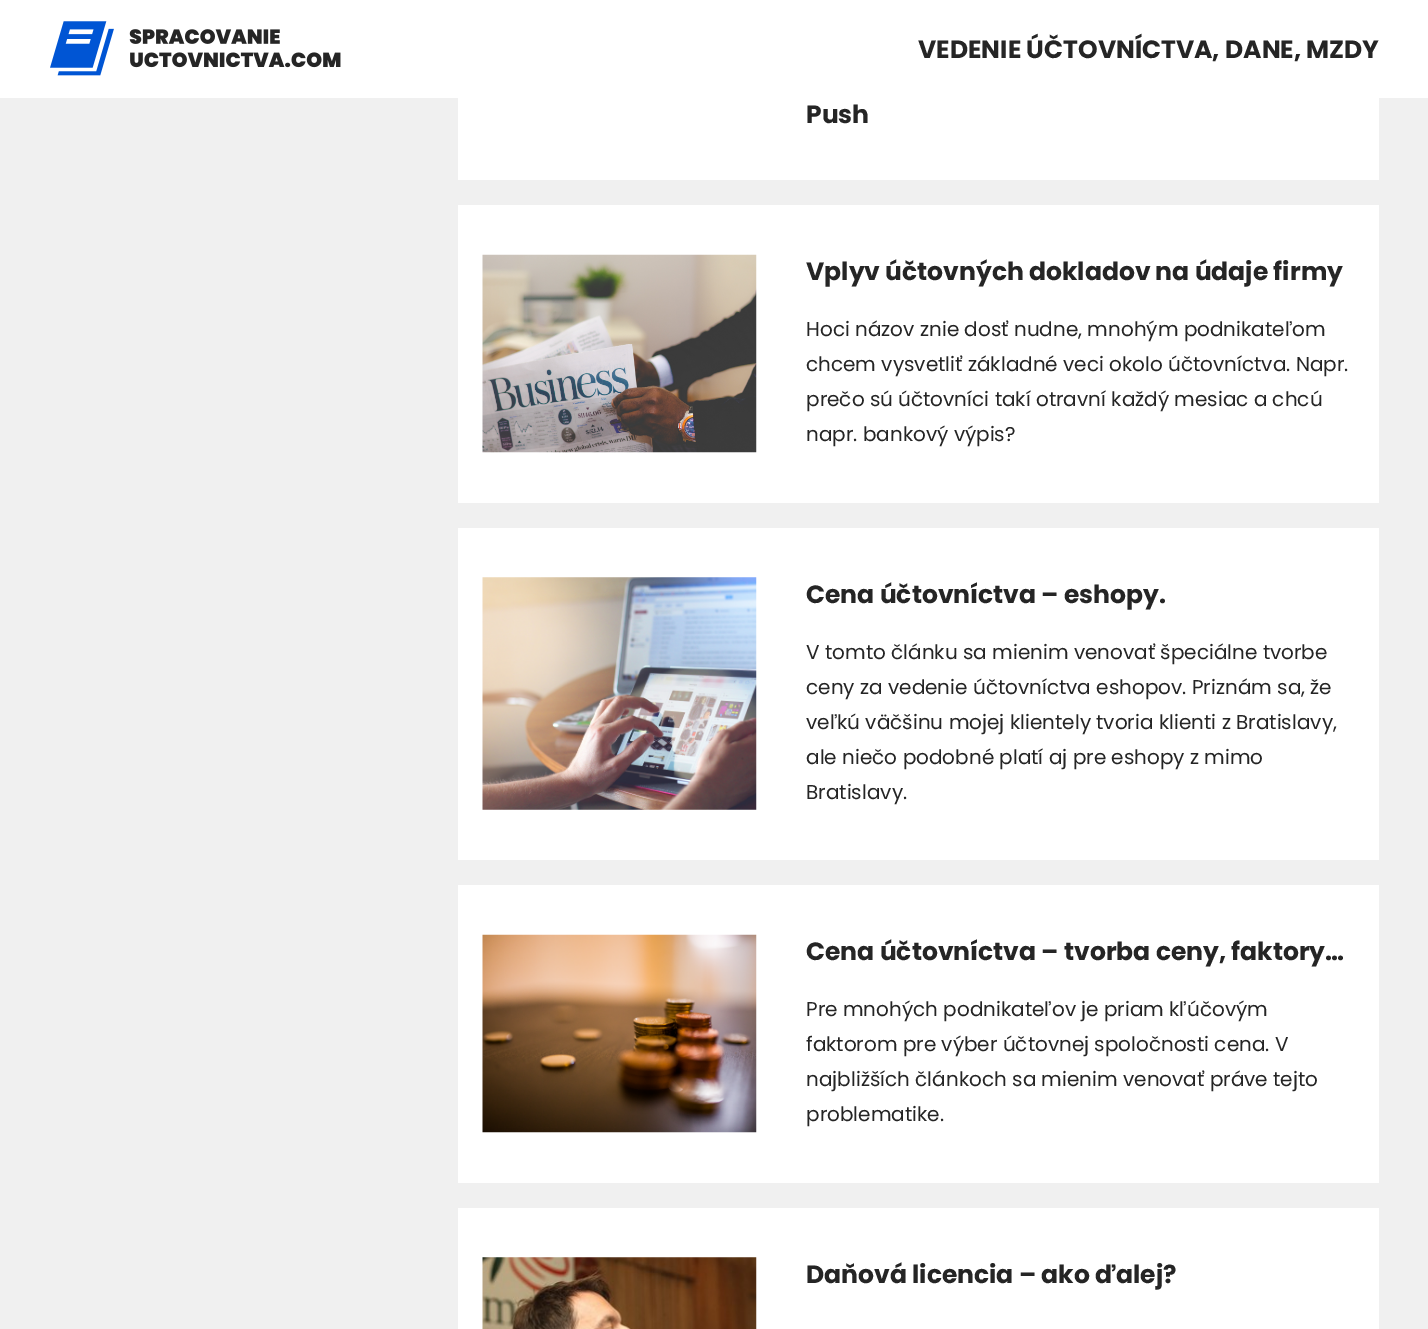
%!PS-Adobe-3.0
%%BoundingBox: 0 0 1428 1329
%%LanguageLevel: 3
%%Pages: 1
%%EndComments
%%BeginProlog
/fn { [ exch dup neg 0 0 3 -1 roll 0 0 ] selectfont } def
/tx { moveto show } def
/bx { rectfill } def
/im { 5 dict begin { /h /w /y /x /name } { exch def } forall
  gsave x y translate w h scale
  w h 8 [w 0 0 h 0 0] name (r) file false 3 colorimage grestore end } def
%%EndProlog
%%BeginSetup
<< /PageSize [1428 1329] >> setpagedevice
%%EndSetup
%%Page: 1 1
0 1329 translate 1 -1 scale
4 setmiterlimit
0.941 setgray
0 0 1428 1329 bx
1 setgray
0 0 1428 98 bx
(image0.raw) 50 21 291 55 im
/Poppins-Bold 25 fn
0.145 setgray
(VEDENIE ÚČTOVNÍCTVA, DANE, MZDY) 918 58 tx
1 setgray
458 98 921 82 bx
0.145 setgray
(Push) 806 123 tx
1 setgray
458 205 921 298 bx
(image1.raw) 482 254 275 199 im
0.145 setgray
(Vplyv účtovných dokladov na údaje firmy) 806 280 tx
/Poppins-Regular 20 fn
(Hoci názov znie dosť nudne, mnohým podnikateľom) 806 336 tx
(chcem vysvetliť základné veci okolo účtovníctva. Napr.) 806 371 tx
(prečo sú účtovníci takí otravní každý mesiac a chcú) 806 406 tx
(napr. bankový výpis?) 806 441 tx
1 setgray
458 528 921 332 bx
(image2.raw) 482 577 275 233 im
/Poppins-Bold 25 fn
0.145 setgray
(Cena účtovníctva – eshopy.) 806 603 tx
/Poppins-Regular 20 fn
(V tomto článku sa mienim venovať špeciálne tvorbe) 806 659 tx
(ceny za vedenie účtovníctva eshopov. Priznám sa, že) 806 694 tx
(veľkú väčšinu mojej klientely tvoria klienti z Bratislavy,) 806 729 tx
(ale niečo podobné platí aj pre eshopy z mimo) 806 764 tx
(Bratislavy.) 806 799 tx
1 setgray
458 885 921 298 bx
(image3.raw) 482 934 275 199 im
/Poppins-Bold 25 fn
0.145 setgray
(Cena účtovníctva – tvorba ceny, faktory…) 806 960 tx
/Poppins-Regular 20 fn
(Pre mnohých podnikateľov je priam kľúčovým) 806 1016 tx
(faktorom pre výber účtovnej spoločnosti cena. V) 806 1051 tx
(najbližších článkoch sa mienim venovať práve tejto) 806 1086 tx
(problematike.) 806 1121 tx
1 setgray
458 1208 921 121 bx
(image4.raw) 482 1257 275 72 im
/Poppins-Bold 25 fn
0.145 setgray
(Daňová licencia – ako ďalej?) 806 1283 tx
showpage
%%EOF
